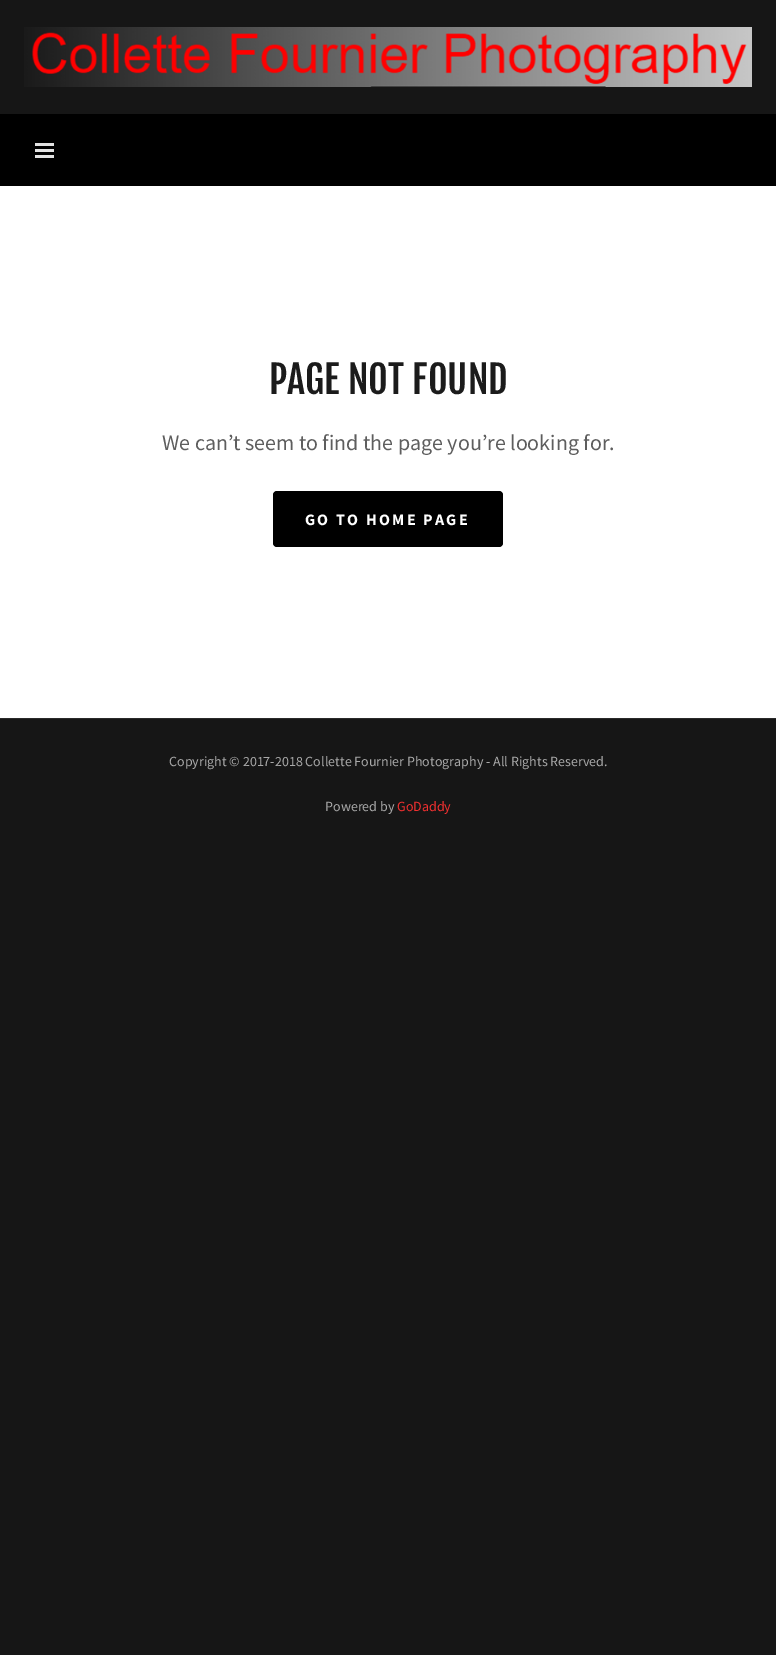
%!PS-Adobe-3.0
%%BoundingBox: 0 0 776 1655
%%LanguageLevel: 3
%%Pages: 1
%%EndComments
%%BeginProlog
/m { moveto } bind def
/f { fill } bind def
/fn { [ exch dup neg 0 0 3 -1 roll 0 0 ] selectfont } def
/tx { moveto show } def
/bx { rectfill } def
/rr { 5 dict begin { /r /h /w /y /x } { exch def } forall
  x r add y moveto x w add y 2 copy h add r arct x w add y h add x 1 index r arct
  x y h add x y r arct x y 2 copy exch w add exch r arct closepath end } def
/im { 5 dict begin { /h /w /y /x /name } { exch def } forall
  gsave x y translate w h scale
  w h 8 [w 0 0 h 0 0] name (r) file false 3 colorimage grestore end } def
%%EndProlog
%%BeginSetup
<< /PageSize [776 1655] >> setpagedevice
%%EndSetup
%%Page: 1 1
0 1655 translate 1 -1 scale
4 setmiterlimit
0.086 setgray
0 0 776 1655 bx
(image0.raw) 24 27 728 60 im
0 setgray
0 114 776 72 bx
0.886 setgray
35 143 19 3 bx
35 149 19 3 bx
35 155 19 3 bx
1 setgray
0 186 776 532 bx
/FjallaOne-Regular 38 fn
0.106 setgray
(PAGE NOT FOUND) 269 394 tx
/SourceSansPro-Regular 22 fn
0.369 setgray
(We can’t seem to find the page you’re looking for.) 162 450 tx
0 setgray
273 491 230 56 4 rr f
/SourceSansPro-Bold 16 fn
1 setgray
305 525 m 2.25 0 (GO TO HOME PAGE) ashow
0.165 setgray
0 718 776 1 bx
/SourceSansPro-Regular 14 fn
0.663 setgray
(Copyright © 2017-2018 Collette Fournier Photography - All Rights Reserved.) 169 766 tx
(Powered by) 325 811 tx
0.949 0.188 0.188 setrgbcolor
(GoDaddy) 397 811 tx
showpage
%%EOF
